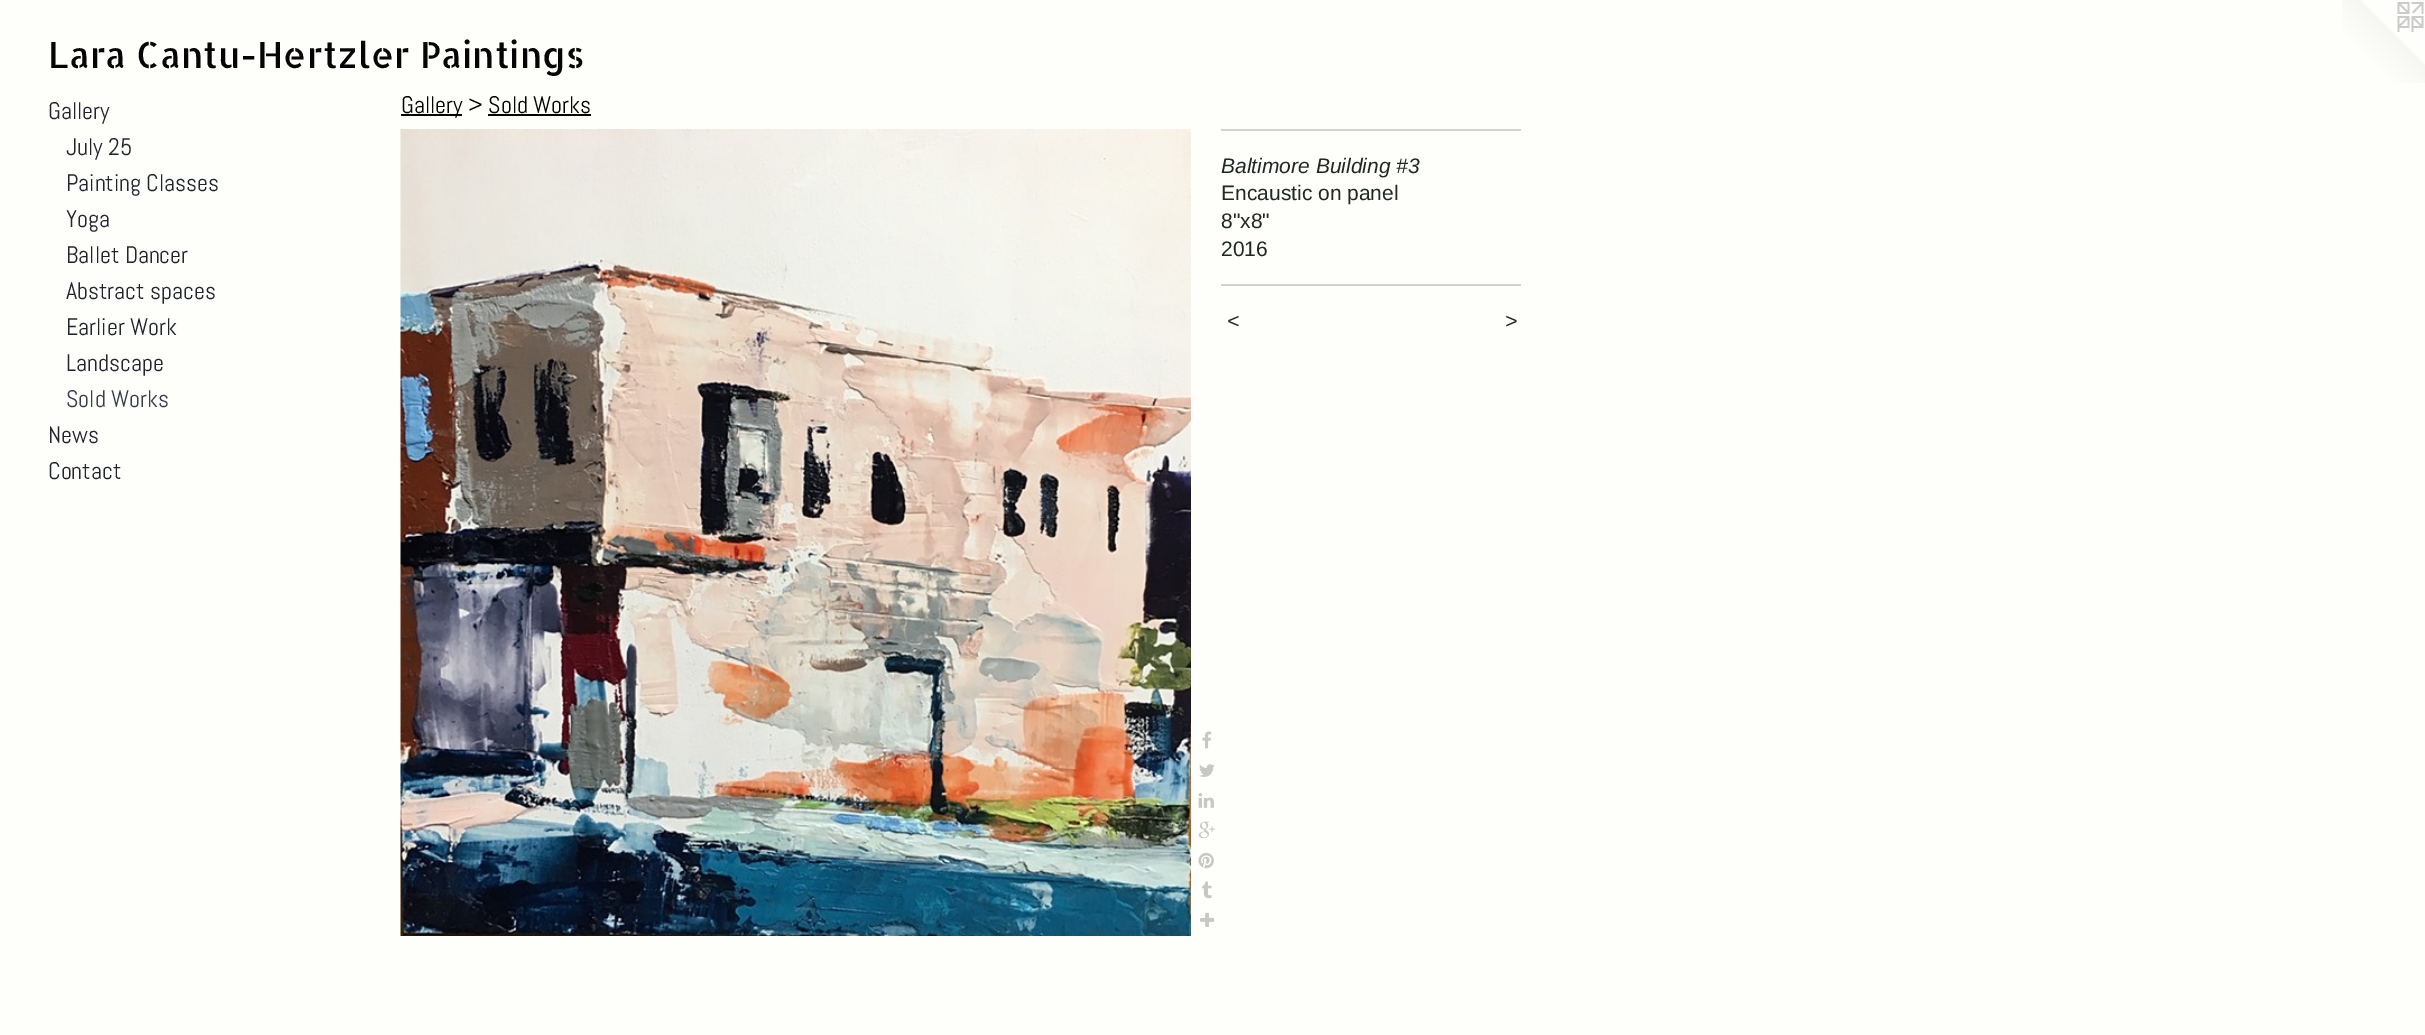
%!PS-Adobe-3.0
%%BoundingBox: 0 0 2425 1035
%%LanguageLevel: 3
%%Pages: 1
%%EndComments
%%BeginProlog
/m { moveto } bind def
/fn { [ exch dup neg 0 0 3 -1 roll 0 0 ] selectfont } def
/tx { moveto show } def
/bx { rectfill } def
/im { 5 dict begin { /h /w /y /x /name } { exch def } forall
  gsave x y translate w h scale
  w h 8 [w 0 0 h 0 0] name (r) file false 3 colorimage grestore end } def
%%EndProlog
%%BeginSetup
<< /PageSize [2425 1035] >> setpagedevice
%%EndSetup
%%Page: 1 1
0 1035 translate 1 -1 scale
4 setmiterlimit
0.996 0.996 0.984 setrgbcolor
0 0 2425 1035 bx
/AllertaStencil-Regular 36 fn
0.024 0.016 0.016 setrgbcolor
(Lara Cantu-Hertzler Paintings) 48 68 tx
(image0.raw) 2342 0 83 83 im
/Abel-Regular 24 fn
0.125 0.145 0.173 setrgbcolor
(Gallery) 48 119 tx
(July 25) 66 155 tx
(Painting Classes) 66 191 tx
(Yoga) 66 227 tx
(Ballet Dancer) 66 263 tx
(Abstract spaces) 66 299 tx
(Earlier Work) 66 335 tx
(Landscape) 66 371 tx
0.208 0.243 0.29 setrgbcolor
(Sold Works) 66 407 tx
0.125 0.145 0.173 setrgbcolor
(News) 48 443 tx
(Contact) 48 479 tx
0 setgray
401 114 61 2 bx
(Gallery > Sold Works) 401 113 tx
488 114 103 2 bx
(image1.raw) 400 129 791 807 im
(image2.raw) 1202 731 10 18 im
(image3.raw) 1199 764 16 13 im
(image4.raw) 1198 793 16 15 im
(image5.raw) 1198 821 17 18 im
(image6.raw) 1198 852 16 17 im
(image7.raw) 1202 881 10 18 im
(image8.raw) 1200 912 15 15 im
0.82 0.827 0.816 setrgbcolor
1221 129 300 2 bx
/LiberationSans-Italic 21 fn
0.122 0.157 0.141 setrgbcolor
(Baltimore Building #3) 1221 173 tx
/LiberationSans-Regular 21 fn
(Encaustic on panel) 1221 200 tx
(8"x8") 1221 228 tx
(2016) 1221 256 tx
0.82 0.827 0.816 setrgbcolor
1221 284 300 2 bx
/LiberationSans-Italic 21 fn
0.122 0.157 0.141 setrgbcolor
1227 328 m 2 0 (<) ashow
1505 328 m 2 0 (>) ashow
showpage
%%EOF
